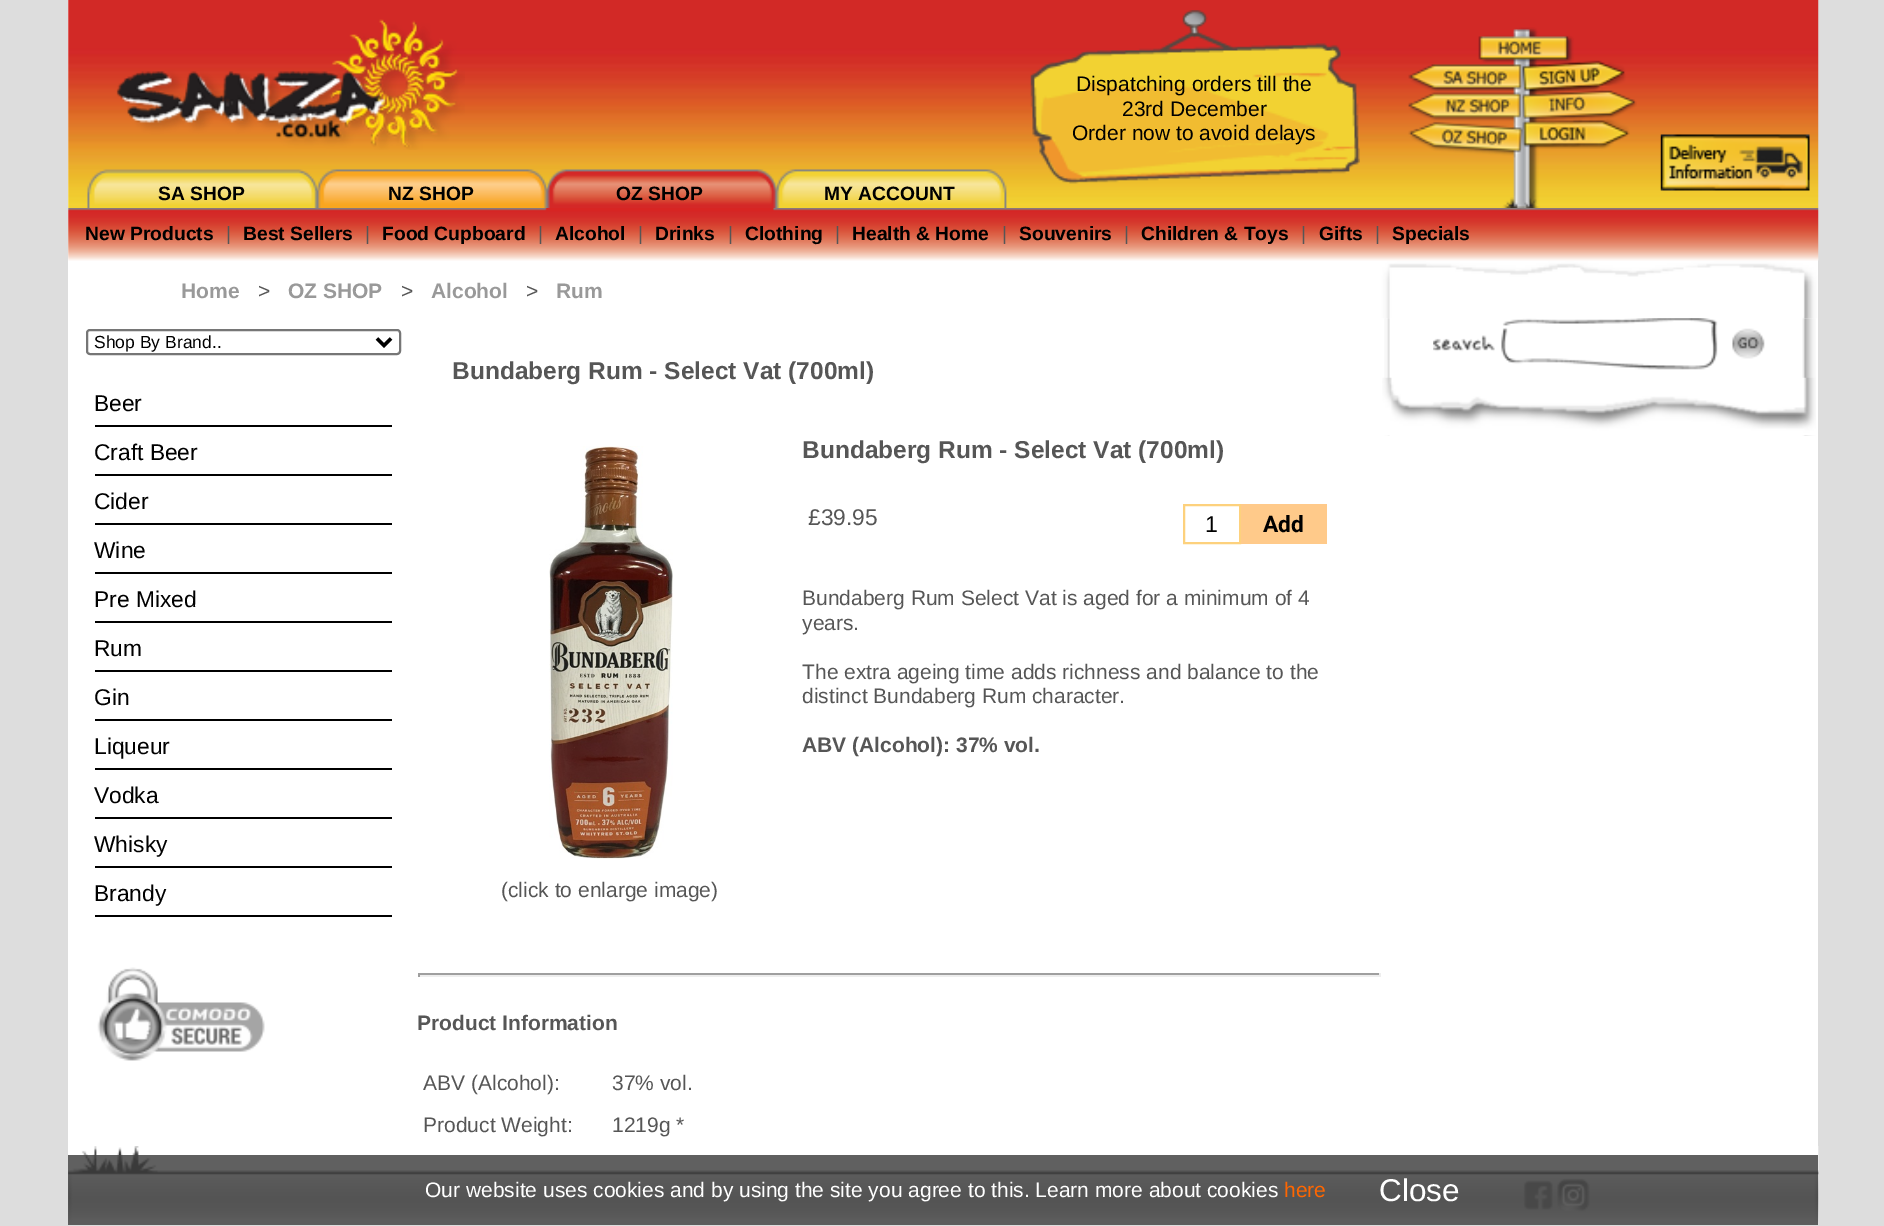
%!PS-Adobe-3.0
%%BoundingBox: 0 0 1884 1226
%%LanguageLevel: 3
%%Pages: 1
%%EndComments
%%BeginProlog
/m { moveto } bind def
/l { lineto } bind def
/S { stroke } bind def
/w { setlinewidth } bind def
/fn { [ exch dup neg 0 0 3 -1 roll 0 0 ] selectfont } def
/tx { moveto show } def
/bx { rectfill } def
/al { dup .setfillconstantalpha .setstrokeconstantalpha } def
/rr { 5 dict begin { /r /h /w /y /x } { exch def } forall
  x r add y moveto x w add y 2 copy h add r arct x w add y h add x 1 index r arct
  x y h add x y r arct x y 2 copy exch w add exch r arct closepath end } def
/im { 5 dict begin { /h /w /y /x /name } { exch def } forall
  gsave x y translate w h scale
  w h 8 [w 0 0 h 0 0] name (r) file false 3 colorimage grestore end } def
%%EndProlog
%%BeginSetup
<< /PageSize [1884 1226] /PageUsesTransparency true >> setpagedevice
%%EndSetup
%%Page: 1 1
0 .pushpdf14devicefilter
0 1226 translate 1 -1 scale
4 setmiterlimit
0.867 setgray
0 0 1884 1226 bx
1 setgray
68 0 1750 261 bx
(image0.raw) 68 0 1751 208 im
(image1.raw) 116 19 349 131 im
(image2.raw) 1030 10 330 174 im
/LiberationSans-Regular 21 fn
0 setgray
(Dispatching orders till the) 1076 91 tx
(23rd December) 1122 116 tx
(Order now to avoid delays) 1072 140 tx
(image3.raw) 1408 27 229 181 im
(image4.raw) 87 169 920 39 im
(image5.raw) 1660 134 150 57 im
/LiberationSans-Bold 19.25 fn
(SA SHOP) 158 200 tx
(NZ SHOP) 388 200 tx
(OZ SHOP) 616 200 tx
(MY ACCOUNT) 824 200 tx
(image6.raw) 68 208 1751 53 im
(New Products) 85 240 tx
/LiberationSans-Regular 19.25 fn
0.337 setgray
(|) 226 240 tx
/LiberationSans-Bold 19.25 fn
0 setgray
(Best Sellers) 243 240 tx
/LiberationSans-Regular 19.25 fn
0.337 setgray
(|) 365 240 tx
/LiberationSans-Bold 19.25 fn
0 setgray
(Food Cupboard) 382 240 tx
/LiberationSans-Regular 19.25 fn
0.337 setgray
(|) 538 240 tx
/LiberationSans-Bold 19.25 fn
0 setgray
(Alcohol) 555 240 tx
/LiberationSans-Regular 19.25 fn
0.337 setgray
(|) 638 240 tx
/LiberationSans-Bold 19.25 fn
0 setgray
(Drinks) 655 240 tx
/LiberationSans-Regular 19.25 fn
0.337 setgray
(|) 728 240 tx
/LiberationSans-Bold 19.25 fn
0 setgray
(Clothing) 745 240 tx
/LiberationSans-Regular 19.25 fn
0.337 setgray
(|) 835 240 tx
/LiberationSans-Bold 19.25 fn
0 setgray
(Health & Home) 852 240 tx
/LiberationSans-Regular 19.25 fn
0.337 setgray
(|) 1002 240 tx
/LiberationSans-Bold 19.25 fn
0 setgray
(Souvenirs) 1019 240 tx
/LiberationSans-Regular 19.25 fn
0.337 setgray
(|) 1124 240 tx
/LiberationSans-Bold 19.25 fn
0 setgray
(Children & Toys) 1141 240 tx
/LiberationSans-Regular 19.25 fn
0.337 setgray
(|) 1301 240 tx
/LiberationSans-Bold 19.25 fn
0 setgray
(Gifts) 1319 240 tx
/LiberationSans-Regular 19.25 fn
0.337 setgray
(|) 1375 240 tx
/LiberationSans-Bold 19.25 fn
0 setgray
(Specials) 1392 240 tx
1 setgray
68 261 1313 44 bx
/LiberationSans-Bold 21 fn
0.6 setgray
(Home) 181 298 tx
/LiberationSans-Regular 21 fn
0.337 setgray
(>) 258 298 tx
/LiberationSans-Bold 21 fn
0.6 setgray
(OZ SHOP) 288 298 tx
/LiberationSans-Regular 21 fn
0.337 setgray
(>) 401 298 tx
/LiberationSans-Bold 21 fn
0.6 setgray
(Alcohol) 431 298 tx
/LiberationSans-Regular 21 fn
0.337 setgray
(>) 526 298 tx
/LiberationSans-Bold 21 fn
0.6 setgray
(Rum) 556 298 tx
1 setgray
1381 318 437 828 bx
(image7.raw) 1381 261 437 58 im
(image8.raw) 1384 318 432 118 im
(image9.raw) 1433 318 285 52 im
(image10.raw) 1732 328 33 31 im
(image11.raw) 1382 377 434 59 im
68 305 1313 841 bx
0.463 setgray
2 w
87 330 313 24 3 rr S
0 setgray
3.5 w
377 338.5 m 384 345.5 l 391 338.5 l S
/LiberationSans-Regular 17.5 fn
(Shop By Brand..) 94 348 tx
95 425 297 2 bx
/LiberationSans-Regular 22.75 fn
(Beer) 94 411 tx
95 474 297 2 bx
(Craft Beer) 94 460 tx
95 523 297 2 bx
(Cider) 94 509 tx
95 572 297 2 bx
(Wine) 94 558 tx
95 621 297 2 bx
(Pre Mixed) 94 607 tx
95 670 297 2 bx
(Rum) 94 656 tx
95 719 297 2 bx
(Gin) 94 705 tx
95 768 297 2 bx
(Liqueur) 94 754 tx
95 817 297 2 bx
(Vodka) 94 803 tx
95 866 297 2 bx
(Whisky) 94 852 tx
95 915 297 2 bx
(Brandy) 94 901 tx
(image12.raw) 97 967 168 94 im
/LiberationSans-Bold 24.5 fn
0.337 setgray
(Bundaberg Rum - Select Vat \(700ml\)) 452 379 tx
(Bundaberg Rum - Select Vat \(700ml\)) 802 458 tx
/LiberationSans-Regular 22.75 fn
(£39.95) 808 525 tx
0.992 0.82 0.49 setrgbcolor
2 w
1184 505 56 38 rectstroke
/LiberationSans-Regular 23 fn
0 setgray
(1) 1205 532 tx
1 0.792 0.541 setrgbcolor
1241 504 86 40 bx
/Roboto-Bold 22.75 fn
0 setgray
(Add) 1263 532 tx
/LiberationSans-Regular 21 fn
0.337 setgray
(Bundaberg Rum Select Vat is aged for a minimum of 4) 802 605 tx
(years.) 802 630 tx
(The extra ageing time adds richness and balance to the) 802 679 tx
(distinct Bundaberg Rum character.) 802 703 tx
/LiberationSans-Bold 21 fn
(ABV \(Alcohol\): 37% vol.) 802 752 tx
(image13.raw) 549 446 124 413 im
/LiberationSans-Regular 21 fn
(\(click to enlarge image\)) 501 897 tx
0.624 setgray
418 973 963 2 bx
0.933 setgray
1379 973 2 4 bx
418 975 963 2 bx
0.624 setgray
418 973 2 4 bx
/LiberationSans-Bold 21 fn
0.337 setgray
(Product Information) 417 1030 tx
/LiberationSans-Regular 21 fn
(ABV \(Alcohol\):) 423 1090 tx
(37% vol.) 612 1090 tx
(Product Weight:) 423 1132 tx
(1219g *) 612 1132 tx
1 setgray
68 1146 1750 79 bx
(image14.raw) 68 1146 1751 79 im
(image15.raw) 1523 1180 30 30 im
(image16.raw) 1557 1178 33 34 im
0.85 al
0.267 setgray
68 1155 1750 70 bx
1 al
1 setgray
(Our website uses cookies and by using the site you agree to this. Learn more about cookies) 425 1197 tx
1 0.4 0 setrgbcolor
(here) 1284 1197 tx
/LiberationSans-Regular 31.5 fn
1 setgray
(Close) 1379 1201 tx
.poppdf14devicefilter showpage
%%EOF
